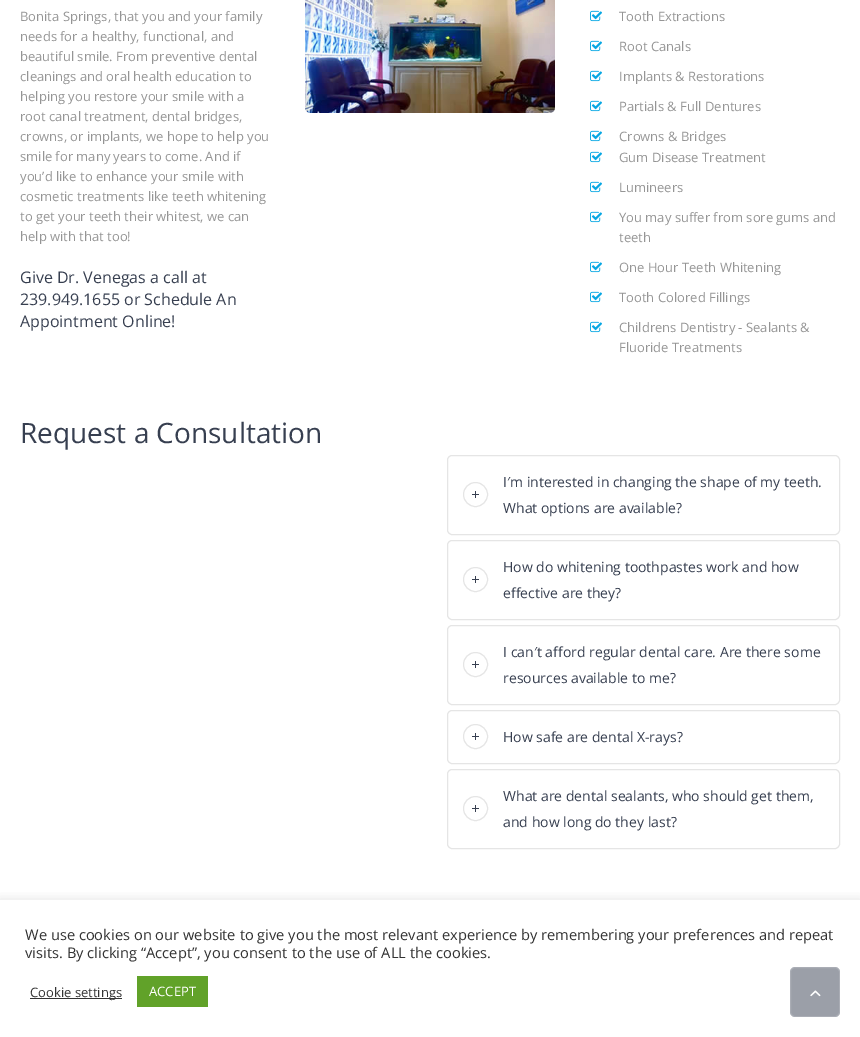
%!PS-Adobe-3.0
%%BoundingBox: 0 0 860 1037
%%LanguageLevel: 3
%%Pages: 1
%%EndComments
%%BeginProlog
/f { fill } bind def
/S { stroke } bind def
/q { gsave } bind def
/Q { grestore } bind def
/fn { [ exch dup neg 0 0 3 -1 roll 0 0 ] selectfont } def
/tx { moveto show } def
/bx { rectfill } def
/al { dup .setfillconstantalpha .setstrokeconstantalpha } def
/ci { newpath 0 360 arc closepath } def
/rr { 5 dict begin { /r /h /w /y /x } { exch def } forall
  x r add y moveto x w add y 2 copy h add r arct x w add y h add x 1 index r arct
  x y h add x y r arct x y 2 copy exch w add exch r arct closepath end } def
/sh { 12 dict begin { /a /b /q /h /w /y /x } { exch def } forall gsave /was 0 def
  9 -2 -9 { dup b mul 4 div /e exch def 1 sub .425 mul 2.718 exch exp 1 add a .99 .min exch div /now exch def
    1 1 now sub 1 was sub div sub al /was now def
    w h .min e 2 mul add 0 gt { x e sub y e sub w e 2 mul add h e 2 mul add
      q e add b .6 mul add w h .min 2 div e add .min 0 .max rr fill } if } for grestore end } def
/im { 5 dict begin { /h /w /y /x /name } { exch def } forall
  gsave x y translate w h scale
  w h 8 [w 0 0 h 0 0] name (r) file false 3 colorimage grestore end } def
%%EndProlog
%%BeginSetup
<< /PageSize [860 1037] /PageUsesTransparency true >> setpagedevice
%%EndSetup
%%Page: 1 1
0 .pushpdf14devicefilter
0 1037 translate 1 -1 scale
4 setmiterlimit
1 setgray
0 0 860 1037 bx
/OpenSans-Regular 13 fn
0.584 setgray
(Bonita Springs, that you and your family) 20 21 tx
(needs for a healthy, functional, and) 20 41 tx
(beautiful smile. From preventive dental) 20 61 tx
(cleanings and oral health education to) 20 81 tx
(helping you restore your smile with a) 20 101 tx
(root canal treatment, dental bridges,) 20 121 tx
(crowns, or implants, we hope to help you) 20 141 tx
(smile for many years to come. And if) 20 161 tx
(you’d like to enhance your smile with) 20 181 tx
(cosmetic treatments like teeth whitening) 20 201 tx
(to get your teeth their whitest, we can) 20 221 tx
(help with that too!) 20 241 tx
/OpenSans-Regular 16 fn
0.216 0.247 0.314 setrgbcolor
(Give Dr. Venegas a call at) 20 283 tx
(239.949.1655 or Schedule An) 20 305 tx
(Appointment Online!) 20 327 tx
(image0.raw) 305 0 250 113 im
(image1.raw) 590 10 12 12 im
/OpenSans-Regular 13 fn
0.584 setgray
(Tooth Extractions) 619 21 tx
(image1.raw) 590 40 12 12 im
(Root Canals) 619 51 tx
(image1.raw) 590 70 12 12 im
(Implants & Restorations) 619 81 tx
(image1.raw) 590 100 12 12 im
(Partials & Full Dentures) 619 111 tx
(image1.raw) 590 130 12 12 im
(Crowns & Bridges) 619 141 tx
(image1.raw) 590 151 12 12 im
(Gum Disease Treatment) 619 162 tx
(image1.raw) 590 181 12 12 im
(Lumineers) 619 192 tx
(image1.raw) 590 211 12 12 im
(You may suffer from sore gums and) 619 222 tx
(teeth) 619 242 tx
(image1.raw) 590 261 12 12 im
(One Hour Teeth Whitening) 619 272 tx
(image1.raw) 590 291 12 12 im
(Tooth Colored Fillings) 619 302 tx
(image1.raw) 590 321 12 12 im
(Childrens Dentistry - Sealants &) 619 332 tx
(Fluoride Treatments) 619 352 tx
/OpenSans-Regular 28 fn
0.216 0.247 0.314 setrgbcolor
(Request a Consultation) 20 443 tx
0.898 setgray
447.5 455.5 392 79 4.5 rr S
475.5 494.5 12 ci S
0.216 0.247 0.314 setrgbcolor
472 494 7 1 bx
475 491 1 7 bx
/OpenSans-Regular 14 fn
(I′m interested in changing the shape of my teeth.) 503 487 tx
(What options are available?) 503 513 tx
0.898 setgray
447.5 540.5 392 79 4.5 rr S
475.5 579.5 12 ci S
0.216 0.247 0.314 setrgbcolor
472 579 7 1 bx
475 576 1 7 bx
(How do whitening toothpastes work and how) 503 572 tx
(effective are they?) 503 598 tx
0.898 setgray
447.5 625.5 392 79 4.5 rr S
475.5 664.5 12 ci S
0.216 0.247 0.314 setrgbcolor
472 664 7 1 bx
475 661 1 7 bx
(I can′t afford regular dental care. Are there some) 503 657 tx
(resources available to me?) 503 683 tx
0.898 setgray
447.5 710.5 392 53 4.5 rr S
475.5 736.5 12 ci S
0.216 0.247 0.314 setrgbcolor
472 736 7 1 bx
475 733 1 7 bx
(How safe are dental X-rays?) 503 742 tx
0.898 setgray
447.5 769.5 392 79 4.5 rr S
475.5 808.5 12 ci S
0.216 0.247 0.314 setrgbcolor
472 808 7 1 bx
475 805 1 7 bx
(What are dental sealants, who should get them,) 503 801 tx
(and how long do they last?) 503 827 tx
q
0 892 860 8 rectclip
0.675 0.671 0.671 setrgbcolor
0 899 860 137 0 5 0.3 sh
Q
0.608 0.624 0.659 setrgbcolor
790 967 50 50 5 rr f
0.15 al
1 setgray
790.5 967.5 49 49 4.5 rr S
1 al
(image2.raw) 810 990 11 7 im
/OpenSans-Regular 14.67 fn
0.2 setgray
(We use cookies on our website to give you the most relevant experience by remembering your preferences and repeat) 25 940 tx
(visits. By clicking “Accept”, you consent to the use of ALL the cookies.) 25 958 tx
30 998 92 1 bx
/OpenSans-Regular 13 fn
(Cookie settings) 30 997 tx
0.38 0.635 0.161 setrgbcolor
137 976 71 31 bx
1 setgray
(ACCEPT) 149 996 tx
.poppdf14devicefilter showpage
%%EOF
